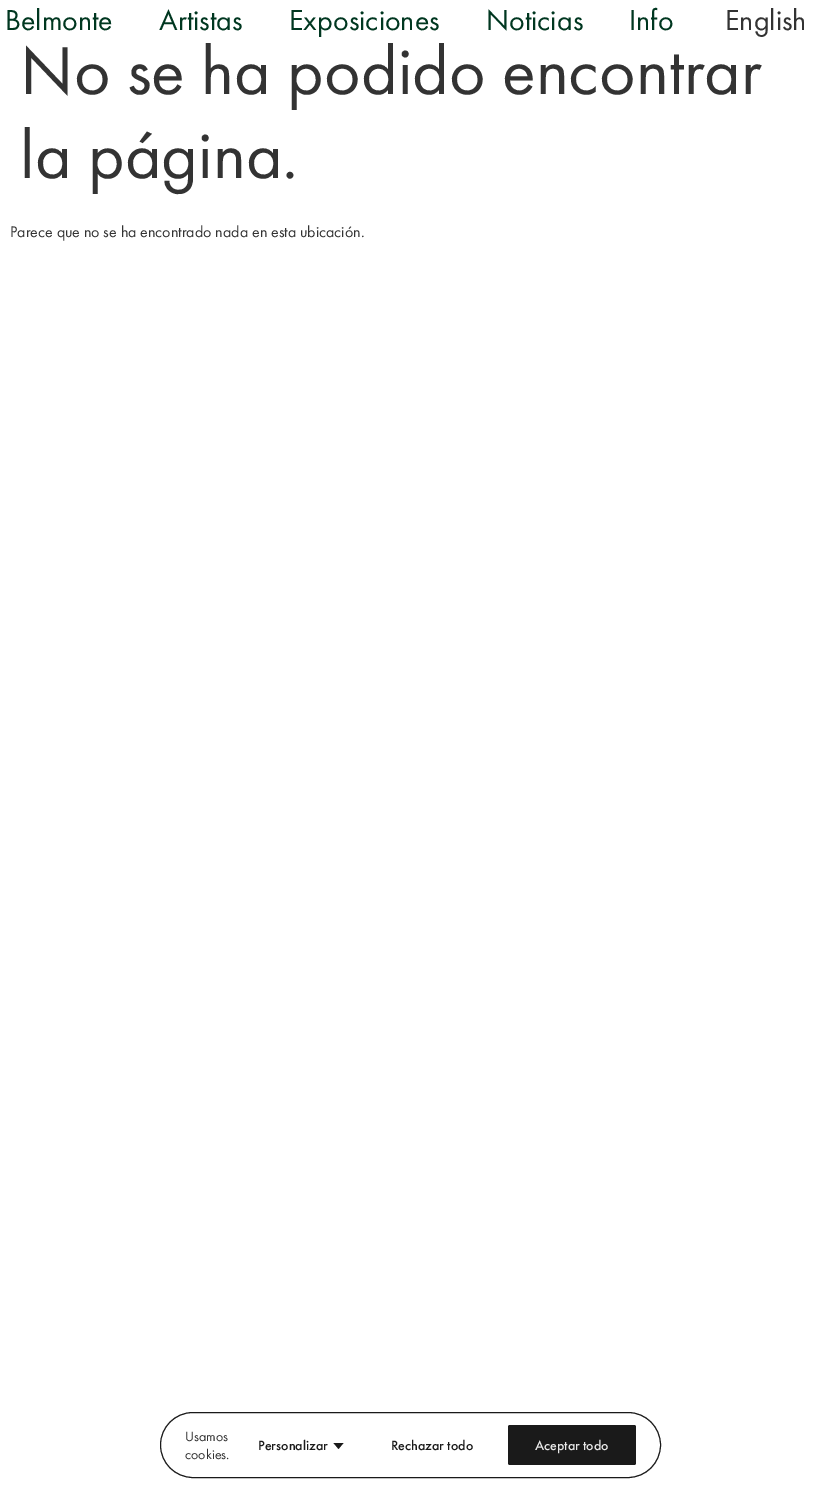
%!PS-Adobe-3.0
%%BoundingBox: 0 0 820 1511
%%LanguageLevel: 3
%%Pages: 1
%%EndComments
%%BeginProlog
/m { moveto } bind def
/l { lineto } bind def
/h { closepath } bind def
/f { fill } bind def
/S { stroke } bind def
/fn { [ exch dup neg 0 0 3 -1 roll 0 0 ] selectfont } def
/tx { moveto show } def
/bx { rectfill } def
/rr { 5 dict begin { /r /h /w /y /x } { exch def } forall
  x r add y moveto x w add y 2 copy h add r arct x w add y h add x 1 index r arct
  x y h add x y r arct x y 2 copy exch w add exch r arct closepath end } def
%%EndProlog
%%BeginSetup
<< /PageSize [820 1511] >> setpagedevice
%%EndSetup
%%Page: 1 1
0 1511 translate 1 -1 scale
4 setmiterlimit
1 setgray
0 0 820 1511 bx
/FuturaPT-Regular 30 fn
0 0.216 0.125 setrgbcolor
(Belmonte) 5 30 tx
(Artistas) 159 30 tx
(Exposiciones) 289 30 tx
(Noticias) 486 30 tx
(Info) 629 30 tx
0.2 setgray
(English) 725 30 tx
/FuturaPT-Regular 70 fn
(No se ha podido encontrar) 20 94 tx
(la página.) 20 178 tx
/FuturaPT-Regular 16 fn
(Parece que no se ha encontrado nada en esta ubicación.) 10 237 tx
0.102 setgray
160.5 1412.5 500 65 32.5 rr S
/FuturaPT-Regular 14 fn
0.2 setgray
(Usamos) 185 1441 tx
(cookies.) 185 1459 tx
/FuturaPT-Medium 14 fn
0.102 setgray
(Personalizar) 258 1450 tx
333.5 1443 m 343.5 1443 l 338.5 1449 l h f
(Rechazar todo) 391 1450 tx
508 1425 128 40 2 rr f
0.91 setgray
(Aceptar todo) 535 1450 tx
showpage
%%EOF
